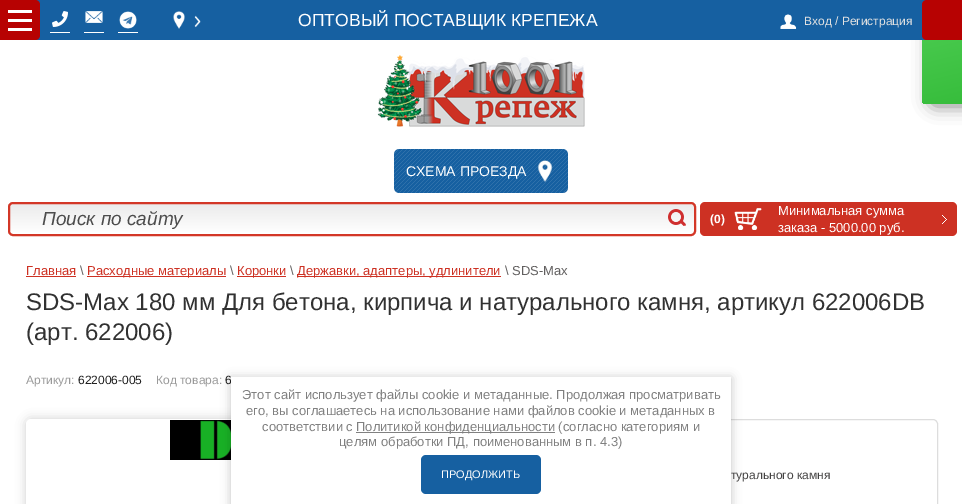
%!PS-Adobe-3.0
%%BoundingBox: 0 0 962 504
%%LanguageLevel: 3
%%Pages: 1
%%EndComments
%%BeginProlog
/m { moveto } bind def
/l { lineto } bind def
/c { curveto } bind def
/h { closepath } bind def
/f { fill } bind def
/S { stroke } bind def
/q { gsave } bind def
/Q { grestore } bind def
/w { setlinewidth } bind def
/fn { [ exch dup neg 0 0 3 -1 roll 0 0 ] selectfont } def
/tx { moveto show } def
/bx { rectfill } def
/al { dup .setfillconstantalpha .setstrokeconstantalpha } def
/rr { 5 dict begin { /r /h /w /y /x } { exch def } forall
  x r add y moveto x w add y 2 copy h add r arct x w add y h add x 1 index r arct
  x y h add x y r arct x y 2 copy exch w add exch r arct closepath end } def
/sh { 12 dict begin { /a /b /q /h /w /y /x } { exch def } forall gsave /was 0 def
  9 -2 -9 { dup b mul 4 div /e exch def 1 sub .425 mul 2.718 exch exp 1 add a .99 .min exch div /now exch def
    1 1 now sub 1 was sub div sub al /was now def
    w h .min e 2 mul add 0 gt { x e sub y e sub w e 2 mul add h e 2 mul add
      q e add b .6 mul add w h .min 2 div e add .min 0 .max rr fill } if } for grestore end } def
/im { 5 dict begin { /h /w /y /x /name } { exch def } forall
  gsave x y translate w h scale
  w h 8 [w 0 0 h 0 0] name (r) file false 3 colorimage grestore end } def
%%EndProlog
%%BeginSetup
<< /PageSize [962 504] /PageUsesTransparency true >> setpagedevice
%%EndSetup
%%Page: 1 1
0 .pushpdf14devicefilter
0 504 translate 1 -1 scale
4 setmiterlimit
1 setgray
0 0 962 504 bx
0.502 setgray
930 -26 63 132 5 8.5 1 sh
q 927 -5 m 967 -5 l 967 104 l 927 104 l 924 104 922 102 922 99 c 922 0 l 922 -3 924 -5 927 -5 c h clip newpath
<< /ShadingType 2 /ColorSpace /DeviceRGB /Coords [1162 -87 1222 163] /Extend [true true] /Function << /FunctionType 2 /Domain [0 1] /C0 [0.341 0.831 0.361] /C1 [0.11 0.663 0.129] /N 1 >> >> shfill Q
0.086 0.376 0.631 setrgbcolor
35 0 892 40 bx
0.718 0.008 0.008 setrgbcolor
0 0 m 35 0 l 38 0 40 2 40 5 c 40 35 l 40 38 38 40 35 40 c 0 40 l h f
1 setgray
8 10 24 3 bx
8 28 24 3 bx
8 19 24 3 bx
50 32 20 1 bx
(image0.raw) 52 11 16 16 im
84 32 20 1 bx
(image1.raw) 85 11 18 12 im
118 32 20 1 bx
(image2.raw) 119 11 18 18 im
(image3.raw) 173 11 12 18 im
(image4.raw) 194 15 7 13 im
/LiberationSans-Regular 17.6 fn
(ОПТОВЫЙ ПОСТАВЩИК КРЕПЕЖА) 298 26 tx
(image5.raw) 780 14 17 15 im
/LiberationSans-Regular 12 fn
0.882 setgray
(Вход / Регистрация) 804 25 tx
0.718 0.008 0.008 setrgbcolor
927 0 m 962 0 l 962 40 l 927 40 l 924 40 922 38 922 35 c 922 5 l 922 2 924 0 927 0 c h f
(image6.raw) 377 55 208 72 im
0.086 0.376 0.631 setrgbcolor
394 149 174 44 5 rr f
(image7.raw) 394 149 174 44 im
(image8.raw) 537 160 16 22 im
/LiberationSans-Regular 14 fn
1 setgray
(СХЕМА ПРОЕЗДА) 406 176 tx
q
8 202 688 34 5 rr clip newpath
q 8 204 m 696 204 l 696 234 l 8 234 l h clip newpath
<< /ShadingType 2 /ColorSpace /DeviceRGB /Coords [352 204 352 234] /Extend [true true] /Function << /FunctionType 2 /Domain [0 1] /C0 [0.922 0.922 0.922] /C1 [1 1 1] /N 1 >> >> shfill Q
Q
0.827 0.216 0.153 setrgbcolor
2 w
9 203 686 32 4 rr S
/LiberationSans-Italic 19 fn
0.298 setgray
(Поиск по сайту) 42 225 tx
(image9.raw) 668 209 18 17 im
0.804 0.192 0.137 setrgbcolor
700 202 257 34 5 rr f
(image10.raw) 942 215 5 9 im
/LiberationSans-Bold 12 fn
1 setgray
(\(0\)) 710 223 tx
(image11.raw) 734 208 28 22 im
/LiberationSans-Regular 13 fn
(Минимальная сумма) 778 215 tx
(заказа - 5000.00 руб.) 778 232 tx
0.804 0.192 0.137 setrgbcolor
(Главная) 26 275 tx
26 276 50 1 bx
0.38 0.373 0.373 setrgbcolor
(\\) 80 275 tx
0.804 0.192 0.137 setrgbcolor
87 276 139 1 bx
(Расходные материалы) 87 275 tx
0.38 0.373 0.373 setrgbcolor
(\\) 230 275 tx
0.804 0.192 0.137 setrgbcolor
237 276 49 1 bx
(Коронки) 237 275 tx
0.38 0.373 0.373 setrgbcolor
(\\) 290 275 tx
0.804 0.192 0.137 setrgbcolor
297 276 204 1 bx
(Державки, адаптеры, удлинители) 297 275 tx
0.38 0.373 0.373 setrgbcolor
(\\ SDS-Max) 505 275 tx
/LiberationSans-Regular 24 fn
0.192 setgray
(SDS-Max 180 мм Для бетона, кирпича и натурального камня, артикул 622006DB) 26 310 tx
(\(арт. 622006\)) 26 340 tx
/LiberationSans-Regular 12 fn
0.6 setgray
(Артикул:) 26 384 tx
0.129 setgray
(622006-005) 78 384 tx
0.6 setgray
(Код товара:) 156 384 tx
0.129 setgray
(6) 225 384 tx
0 setgray
26 419 345 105 5 5 0.19 sh
1 setgray
26 419 345 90 5 rr f
(image12.raw) 170 420 61 40 im
0.867 setgray
1 w
391.5 419.5 546 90 4.5 rr S
0.263 0.259 0.259 setrgbcolor
(турального камня) 731 479 tx
0 setgray
231 378 500 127 0 5 0.23 sh
1 setgray
231 377 500 127 bx
/LiberationSans-Regular 13 fn
0.502 setgray
(Этот сайт использует файлы cookie и метаданные. Продолжая просматривать) 242 399 tx
(его, вы соглашаетесь на использование нами файлов cookie и метаданных в) 246 415 tx
(соответствии с) 262 431 tx
356 432 199 1 bx
(Политикой конфиденциальности \(согласно категориям и) 356 431 tx
(целям обработки ПД, поименованным в п. 4.3\)) 339 446 tx
0.086 0.376 0.631 setrgbcolor
421 455 120 39 5 rr f
/LiberationSans-Regular 11 fn
1 setgray
(ПРОДОЛЖИТЬ) 441 478 tx
.poppdf14devicefilter showpage
%%EOF
